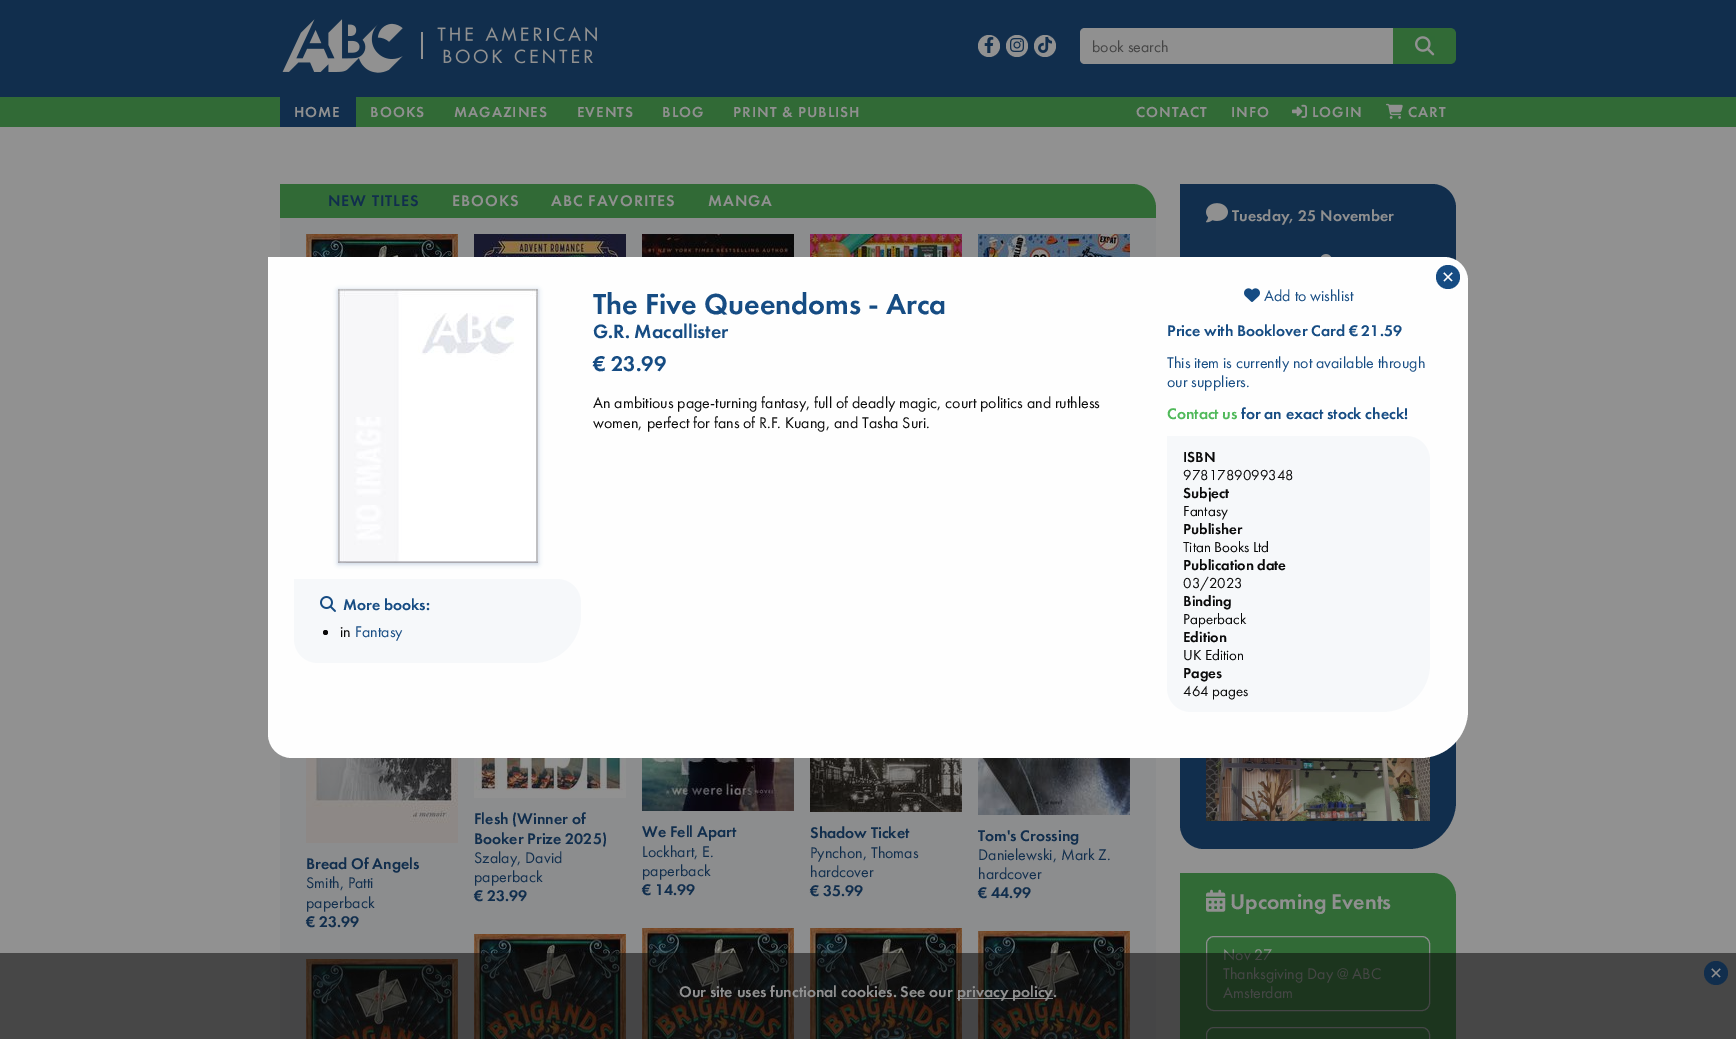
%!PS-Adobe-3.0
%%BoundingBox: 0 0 1736 1039
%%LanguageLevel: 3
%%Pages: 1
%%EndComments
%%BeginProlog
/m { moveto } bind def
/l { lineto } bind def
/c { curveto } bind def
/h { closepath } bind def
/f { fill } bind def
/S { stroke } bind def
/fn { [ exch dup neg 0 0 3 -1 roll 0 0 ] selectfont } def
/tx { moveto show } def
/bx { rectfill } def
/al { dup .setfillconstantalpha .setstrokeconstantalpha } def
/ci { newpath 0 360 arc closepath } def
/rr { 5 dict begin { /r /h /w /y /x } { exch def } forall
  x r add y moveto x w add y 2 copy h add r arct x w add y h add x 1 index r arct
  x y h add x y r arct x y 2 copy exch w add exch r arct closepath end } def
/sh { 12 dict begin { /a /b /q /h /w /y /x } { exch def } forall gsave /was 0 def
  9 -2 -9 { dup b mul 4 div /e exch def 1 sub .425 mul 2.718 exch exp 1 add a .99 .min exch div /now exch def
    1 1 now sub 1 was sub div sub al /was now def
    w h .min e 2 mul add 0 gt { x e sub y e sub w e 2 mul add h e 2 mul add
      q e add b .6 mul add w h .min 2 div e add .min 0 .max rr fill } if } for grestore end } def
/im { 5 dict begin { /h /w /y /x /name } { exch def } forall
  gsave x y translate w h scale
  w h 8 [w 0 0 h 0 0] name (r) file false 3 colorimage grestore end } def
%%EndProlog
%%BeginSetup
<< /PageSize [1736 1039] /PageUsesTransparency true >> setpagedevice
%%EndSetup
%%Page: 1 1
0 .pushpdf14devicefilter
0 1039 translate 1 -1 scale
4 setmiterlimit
0.569 setgray
0 0 1736 1039 bx
0.067 0.18 0.302 setrgbcolor
0 0 1736 97 bx
(image0.raw) 282 19 315 54 im
0.569 setgray
989 46 11 ci f
(image1.raw) 984 37 10 16 im
1017 46 11 ci f
(image2.raw) 1010 38 14 14 im
1045 46 11 ci f
(image3.raw) 1038 37 14 16 im
0.565 setgray
1085 28 m 1393 28 l 1393 64 l 1085 64 l 1082 64 1080 62 1080 59 c 1080 33 l 1080 30 1082 28 1085 28 c h f
/FuturaPT-Regular 16 fn
0.271 setgray
(book search) 1092 52 tx
0.192 0.416 0.212 setrgbcolor
1393 28 m 1450 28 l 1453.5 28 1456 30.5 1456 34 c 1456 58 l 1456 61.5 1453.5 64 1450 64 c 1393 64 l h f
(image4.raw) 1415 36 20 20 im
0 97 1736 30 bx
0.067 0.18 0.302 setrgbcolor
280 97 76 30 bx
/FuturaPT-Medium 15 fn
0.565 setgray
294 117 m 1 0 (HOME) ashow
370 117 m 1 0 (BOOKS) ashow
454 117 m 1 0 (MAGAZINES) ashow
577 117 m 1 0 (EVENTS) ashow
662 117 m 1 0 (BLOG) ashow
733 117 m 1 0 (PRINT & PUBLISH) ashow
1136 117 m 1 0 (CONTACT) ashow
1231 117 m 1 0 (INFO) ashow
(image5.raw) 1292 104 15 14 im
1312 117 m 1 0 (LOGIN) ashow
(image6.raw) 1386 103 17 16 im
1408 117 m 1 0 (CART) ashow
0.192 0.416 0.212 setrgbcolor
280 184 m 1132 184 l 1145.5 184 1156 194.5 1156 208 c 1156 218 l 280 218 l h f
/FuturaPT-Medium 16 fn
0.067 0.18 0.302 setrgbcolor
328 206 m 1 0 (NEW TITLES) ashow
0.565 setgray
452 206 m 1 0 (EBOOKS) ashow
551 206 m 1 0 (ABC FAVORITES) ashow
708 206 m 1 0 (MANGA) ashow
0.549 0.553 0.557 setrgbcolor
280 218 876 821 bx
(image7.raw) 306 234 152 23 im
(image8.raw) 474 234 152 23 im
(image9.raw) 642 234 152 23 im
(image10.raw) 810 234 152 23 im
(image11.raw) 978 234 152 23 im
(image12.raw) 306 758 152 85 im
0.067 0.18 0.302 setrgbcolor
(Bread Of Angels) 306 869 tx
/FuturaPT-Regular 16 fn
(Smith, Patti) 306 888 tx
(paperback) 306 908 tx
/FuturaPT-Medium 16 fn
(€ 23.99) 306 927 tx
(image13.raw) 474 758 152 40 im
(Flesh \(Winner of) 474 824 tx
(Booker Prize 2025\)) 474 844 tx
/FuturaPT-Regular 16 fn
(Szalay, David) 474 863 tx
(paperback) 474 882 tx
/FuturaPT-Medium 16 fn
(€ 23.99) 474 901 tx
(image14.raw) 642 758 152 53 im
(We Fell Apart) 642 837 tx
/FuturaPT-Regular 16 fn
(Lockhart, E.) 642 857 tx
(paperback) 642 876 tx
/FuturaPT-Medium 16 fn
(€ 14.99) 642 895 tx
(image15.raw) 810 758 152 54 im
(Shadow Ticket) 810 838 tx
/FuturaPT-Regular 16 fn
(Pynchon, Thomas) 810 858 tx
(hardcover) 810 877 tx
/FuturaPT-Medium 16 fn
(€ 35.99) 810 896 tx
(image16.raw) 978 758 152 57 im
(Tom's Crossing) 978 841 tx
/FuturaPT-Regular 16 fn
(Danielewski, Mark Z.) 978 860 tx
(hardcover) 978 879 tx
/FuturaPT-Medium 16 fn
(€ 44.99) 978 898 tx
(image17.raw) 306 959 152 80 im
(image18.raw) 474 934 152 105 im
(image19.raw) 642 928 152 111 im
(image20.raw) 810 928 152 111 im
(image21.raw) 978 931 152 108 im
1180 184 m 1432 184 l 1445.5 184 1456 194.5 1456 208 c 1456 801 l 1456 827.5 1434.5 849 1408 849 c 1204 849 l 1190.5 849 1180 838.5 1180 825 c h f
(image22.raw) 1206 203 22 20 im
0.565 setgray
(Tuesday, 25 November) 1232 221 tx
(image23.raw) 1320 254 12 3 im
(image24.raw) 1206 756 224 65 im
0.192 0.416 0.212 setrgbcolor
1180 873 m 1432 873 l 1445.5 873 1456 883.5 1456 897 c 1456 1039 l 1456 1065.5 1434.5 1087 1408 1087 c 1204 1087 l 1190.5 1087 1180 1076.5 1180 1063 c h f
(image25.raw) 1206 889 20 23 im
/FuturaPT-Medium 22 fn
0.565 setgray
(Upcoming Events) 1230 909 tx
0.549 0.553 0.557 setrgbcolor
1206.5 936.5 223 74 7.5 rr S
/FuturaPT-Regular 16 fn
0.565 setgray
(Nov 27) 1223 960 tx
(Thanksgiving Day @ ABC) 1223 979 tx
(Amsterdam) 1223 998 tx
0.549 0.553 0.557 setrgbcolor
1206.5 1027.5 223 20 7.5 rr S
0.996 setgray
268 257 m 1444 257 l 1457.5 257 1468 267.5 1468 281 c 1468 710 l 1468 736.5 1446.5 758 1420 758 c 292 758 l 278.5 758 268 747.5 268 734 c h f
0.086 0.298 0.514 setrgbcolor
1448 277 12 ci f
/FuturaPT-Regular 24 fn
1 setgray
(×) 1442 285 tx
/FuturaPT-Medium 30 fn
0.086 0.298 0.514 setrgbcolor
(The Five Queendoms - Arca) 593 314 tx
/FuturaPT-Medium 20 fn
(G.R. Macallister) 593 338 tx
/FuturaPT-Medium 22 fn
(€ 23.99) 593 371 tx
/FuturaPT-Regular 16 fn
0.039 setgray
(An ambitious page-turning fantasy, full of deadly magic, court politics and ruthless) 593 408 tx
(women, perfect for fans of R.F. Kuang, and Tasha Suri.) 593 428 tx
(image26.raw) 1244 288 16 14 im
0.086 0.298 0.514 setrgbcolor
(Add to wishlist) 1264 301 tx
/FuturaPT-Medium 16 fn
(Price with Booklover Card € 21.59) 1167 336 tx
/FuturaPT-Regular 16 fn
(This item is currently not available through) 1167 368 tx
(our suppliers.) 1167 387 tx
/FuturaPT-Medium 16 fn
0.314 0.725 0.353 setrgbcolor
(Contact us) 1167 419 tx
0.086 0.298 0.514 setrgbcolor
(for an exact stock check!) 1241 419 tx
0.965 0.973 0.98 setrgbcolor
1167 436 m 1406 436 l 1419.5 436 1430 446.5 1430 460 c 1430 664 l 1430 690.5 1408.5 712 1382 712 c 1191 712 l 1177.5 712 1167 701.5 1167 688 c h f
/FuturaPT-Medium 15 fn
0.039 setgray
(ISBN) 1183 462 tx
/FuturaPT-Regular 15 fn
(9781789099348) 1183 480 tx
/FuturaPT-Medium 15 fn
(Subject) 1183 498 tx
/FuturaPT-Regular 15 fn
(Fantasy) 1183 516 tx
/FuturaPT-Medium 15 fn
(Publisher) 1183 534 tx
/FuturaPT-Regular 15 fn
(Titan Books Ltd) 1183 552 tx
/FuturaPT-Medium 15 fn
(Publication date) 1183 570 tx
/FuturaPT-Regular 15 fn
(03/2023) 1183 588 tx
/FuturaPT-Medium 15 fn
(Binding) 1183 606 tx
/FuturaPT-Regular 15 fn
(Paperback) 1183 624 tx
/FuturaPT-Medium 15 fn
(Edition) 1183 642 tx
/FuturaPT-Regular 15 fn
(UK Edition) 1183 660 tx
/FuturaPT-Medium 15 fn
(Pages) 1183 678 tx
/FuturaPT-Regular 15 fn
(464 pages) 1183 696 tx
0.086 0.263 0.514 setrgbcolor
338 290 200 274 0 2.5 0.25 sh
(image27.raw) 338 289 200 274 im
0.965 0.973 0.98 setrgbcolor
294 579 m 557 579 l 570.5 579 581 589.5 581 603 c 581 615 l 581 641.5 559.5 663 533 663 c 318 663 l 304.5 663 294 652.5 294 639 c h f
(image28.raw) 320 596 16 16 im
/FuturaPT-Medium 16 fn
0.086 0.298 0.514 setrgbcolor
(More books:) 343 610 tx
0.039 setgray
325.5 632.5 2.5 ci f
/FuturaPT-Regular 16 fn
(in) 340 637 tx
0.086 0.298 0.514 setrgbcolor
(Fantasy) 355 637 tx
0.55 al
0.039 setgray
0 953 1736 86 bx
1 al
0.067 0.18 0.302 setrgbcolor
1716 973 12 ci f
/FuturaPT-Regular 24 fn
0.565 setgray
(×) 1710 981 tx
/FuturaPT-Medium 16 fn
(Our site uses functional cookies. See our) 679 997 tx
957 998 96 1 bx
(privacy policy.) 957 997 tx
.poppdf14devicefilter showpage
%%EOF
